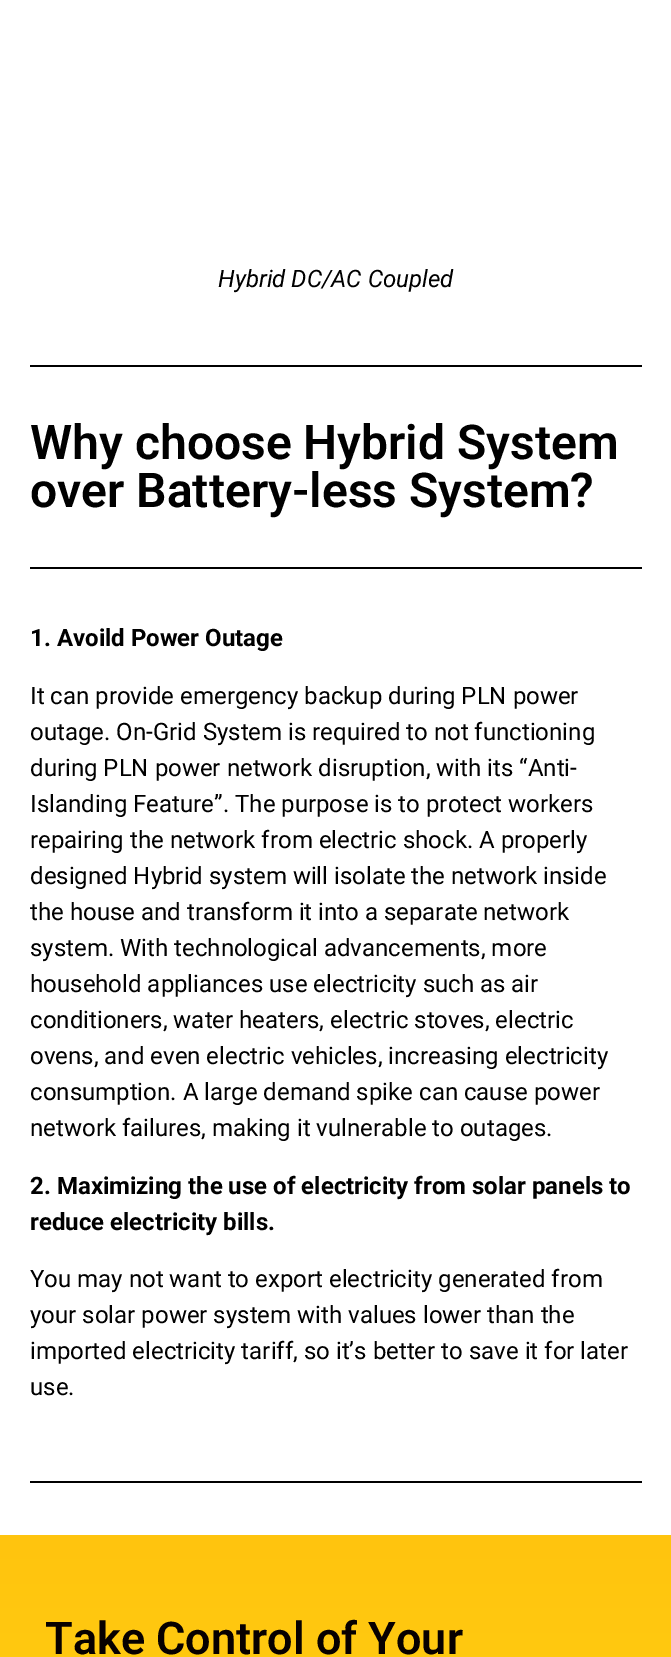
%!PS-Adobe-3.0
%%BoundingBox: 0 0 671 1657
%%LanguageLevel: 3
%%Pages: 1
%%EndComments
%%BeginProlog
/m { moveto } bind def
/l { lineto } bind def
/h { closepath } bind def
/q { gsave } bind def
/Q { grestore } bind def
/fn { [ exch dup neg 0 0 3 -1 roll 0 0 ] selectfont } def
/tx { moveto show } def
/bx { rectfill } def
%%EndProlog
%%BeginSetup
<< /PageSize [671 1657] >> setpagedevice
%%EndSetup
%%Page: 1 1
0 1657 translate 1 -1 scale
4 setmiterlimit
1 setgray
0 0 671 1657 bx
/Roboto-Italic 24 fn
0 setgray
(Hybrid DC/AC Coupled) 218 287 tx
30 365 612 2 bx
/Roboto-SemiBold 48 fn
(Why choose Hybrid System) 30 459 tx
(over Battery-less System?) 30 507 tx
30 567 612 2 bx
/Roboto-Bold 24 fn
(1. Avoild Power Outage) 30 646 tx
/Roboto-Regular 24 fn
(It can provide emergency backup during PLN power) 30 704 tx
(outage. On-Grid System is required to not functioning) 30 740 tx
(during PLN power network disruption, with its “Anti-) 30 776 tx
(Islanding Feature”. The purpose is to protect workers) 30 812 tx
(repairing the network from electric shock. A properly) 30 848 tx
(designed Hybrid system will isolate the network inside) 30 884 tx
(the house and transform it into a separate network) 30 920 tx
(system. With technological advancements, more) 30 956 tx
(household appliances use electricity such as air) 30 992 tx
(conditioners, water heaters, electric stoves, electric) 30 1028 tx
(ovens, and even electric vehicles, increasing electricity) 30 1064 tx
(consumption. A large demand spike can cause power) 30 1100 tx
(network failures, making it vulnerable to outages.) 30 1136 tx
/Roboto-Bold 24 fn
(2. Maximizing the use of electricity from solar panels to) 30 1194 tx
(reduce electricity bills.) 30 1230 tx
/Roboto-Regular 24 fn
(You may not want to export electricity generated from) 30 1287 tx
(your solar power system with values lower than the) 30 1323 tx
(imported electricity tariff, so it’s better to save it for later) 30 1359 tx
(use.) 30 1395 tx
30 1481 612 2 bx
q 0 1535 m 671 1535 l 671 1657 l 0 1657 l h clip newpath
<< /ShadingType 2 /ColorSpace /DeviceRGB /Coords [336 1535 336 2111] /Extend [true true] /Function << /FunctionType 2 /Domain [0 1] /C0 [1 0.769 0.055] /C1 [1 0.851 0.09] /N 1 >> >> shfill Q
/Roboto-SemiBold 45 fn
0.027 0 0 setrgbcolor
(Take Control of Your) 45 1654 tx
showpage
%%EOF
